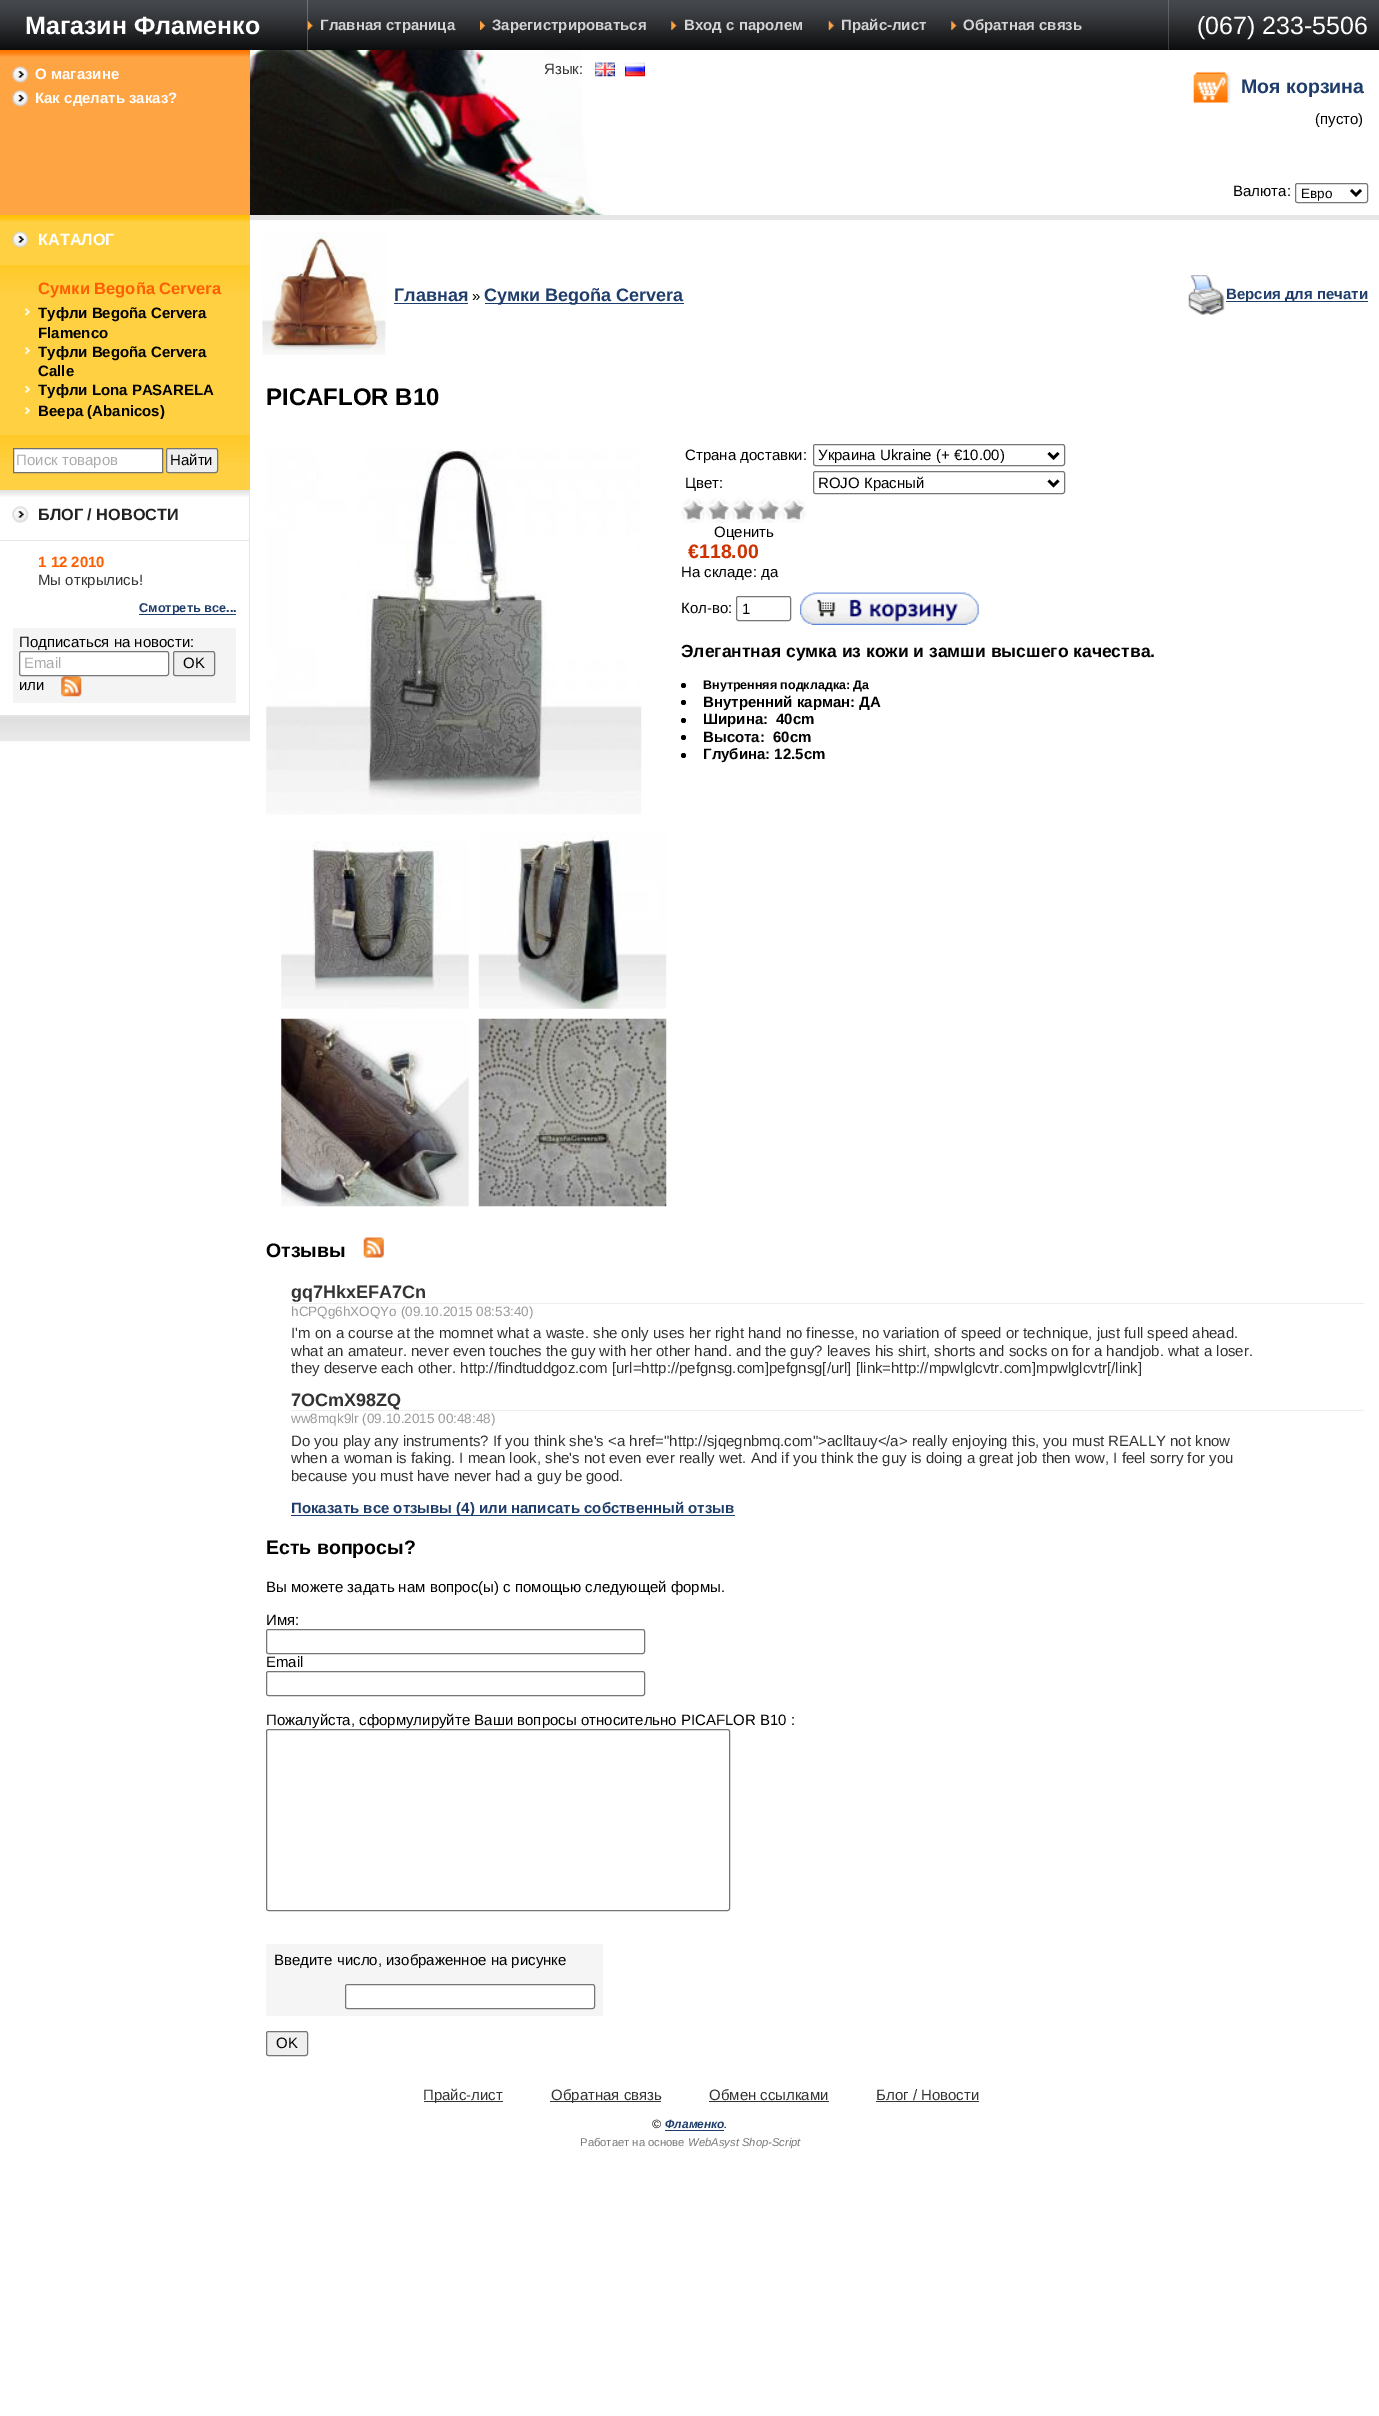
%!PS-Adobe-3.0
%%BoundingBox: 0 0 1379 2416
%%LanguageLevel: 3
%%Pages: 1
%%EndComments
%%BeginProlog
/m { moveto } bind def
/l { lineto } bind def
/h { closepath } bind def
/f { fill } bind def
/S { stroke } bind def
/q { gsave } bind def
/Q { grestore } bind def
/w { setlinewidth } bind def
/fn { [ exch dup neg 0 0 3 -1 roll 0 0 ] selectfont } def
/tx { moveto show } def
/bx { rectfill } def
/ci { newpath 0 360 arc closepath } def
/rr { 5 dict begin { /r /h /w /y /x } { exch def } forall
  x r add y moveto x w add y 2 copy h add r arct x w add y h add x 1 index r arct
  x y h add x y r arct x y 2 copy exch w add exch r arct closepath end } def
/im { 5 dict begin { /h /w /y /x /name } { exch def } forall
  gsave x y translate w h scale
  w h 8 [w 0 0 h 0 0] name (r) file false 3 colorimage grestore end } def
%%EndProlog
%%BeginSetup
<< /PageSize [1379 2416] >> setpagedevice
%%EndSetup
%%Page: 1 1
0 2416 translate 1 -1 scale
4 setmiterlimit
1 setgray
0 0 1379 2416 bx
(image0.raw) 0 0 308 50 im
/LiberationSans-Bold 25 fn
(Магазин Фламенко) 25 34 tx
(image1.raw) 307 0 862 50 im
(image2.raw) 307 21 6 9 im
/LiberationSans-Bold 15 fn
0.827 setgray
(Главная страница) 320 30 tx
(image3.raw) 480 21 5 9 im
(Зарегистрироваться) 492 30 tx
(image4.raw) 671 21 6 9 im
(Вход с паролем) 684 30 tx
(image5.raw) 828 21 6 9 im
(Прайс-лист) 841 30 tx
(image4.raw) 951 21 6 9 im
(Обратная связь) 963 30 tx
(image6.raw) 1168 0 211 50 im
/LiberationSans-Regular 25 fn
1 setgray
(\(067\) 233-5506) 1197 34 tx
1 0.643 0.263 setrgbcolor
0 57 250 158 bx
(image7.raw) 0 50 250 7 im
(image8.raw) 12 66 17 17 im
/LiberationSans-Bold 15 fn
1 setgray
(О магазине) 35 79 tx
(image9.raw) 12 90 17 17 im
(Как сделать заказ?) 35 103 tx
(image10.raw) 250 50 360 165 im
/LiberationSans-Regular 15 fn
0.2 setgray
(Язык:) 544 74 tx
(image11.raw) 595 62 20 15 im
(image12.raw) 625 62 20 15 im
(image13.raw) 1193 71 38 32 im
/LiberationSans-Bold 19.5 fn
0.122 0.239 0.416 setrgbcolor
(Моя корзина) 1241 93 tx
/LiberationSans-Regular 15 fn
0 setgray
(\(пусто\)) 1315 124 tx
(Валюта:) 1233 196 tx
0.463 setgray
1295.5 183.5 72 19 2 rr S
0 setgray
2.5 w
1351 190 m 1356 195 l 1361 190 l S
/LiberationSans-Regular 13.5 fn
(Евро) 1301 198 tx
1 0.816 0.259 setrgbcolor
0 222 250 43 bx
(image14.raw) 0 215 250 7 im
(image15.raw) 12 231 17 17 im
/LiberationSans-Bold 16.25 fn
1 setgray
(КАТАЛОГ) 38 245 tx
1 0.816 0.259 setrgbcolor
0 293 250 142 bx
(image16.raw) 0 265 250 28 im
/LiberationSans-Bold 16.5 fn
1 0.369 0 setrgbcolor
(Сумки Begoña Cervera) 38 294 tx
(image17.raw) 25 308 5 7 im
/LiberationSans-Bold 15 fn
0 setgray
(Туфли Begoña Cervera) 38 318 tx
(Flamenco) 38 338 tx
(image18.raw) 25 347 5 7 im
(Туфли Begoña Cervera) 38 357 tx
(Calle) 38 376 tx
(image19.raw) 25 386 5 7 im
(Туфли Lona PASARELA) 38 395 tx
(image18.raw) 25 407 5 7 im
(Веера \(Abanicos\)) 38 416 tx
1 0.816 0.259 setrgbcolor
0 463 250 27 bx
(image16.raw) 0 435 250 28 im
1 setgray
13.5 448.5 m 162.5 448.5 l 162.5 472.5 l 13.5 472.5 l h q f Q
0.439 setgray
1 w
S
/LiberationSans-Regular 15 fn
0.667 setgray
(Поиск товаров) 16 465 tx
0.937 setgray
166.5 448.5 51 24 2 rr q f Q
0.463 setgray
S
0 setgray
(Найти) 170 465 tx
(image20.raw) 0 490 249 7 im
0.902 setgray
249 490 1 226 bx
0 540 250 1 bx
(image21.raw) 12 506 17 17 im
/LiberationSans-Bold 16.25 fn
0.133 setgray
(БЛОГ / НОВОСТИ) 38 520 tx
0.902 setgray
0 715 250 1 bx
/LiberationSans-Bold 15 fn
1 0.369 0 setrgbcolor
(1 12 2010) 38 567 tx
/LiberationSans-Regular 15 fn
0.2 setgray
(Мы открылись!) 38 585 tx
0.122 0.239 0.416 setrgbcolor
139 614 97 1 bx
/LiberationSans-Bold 12.75 fn
(Смотреть все...) 139 612 tx
0.957 setgray
13 628 223 75 bx
/LiberationSans-Regular 15 fn
0 setgray
(Подписаться на новости:) 19 647 tx
0.937 setgray
173.5 651.5 41 24 2 rr q f Q
0.463 setgray
S
0 setgray
(OK) 183 668 tx
(или) 19 690 tx
(image22.raw) 61 676 21 21 im
1 setgray
19.5 651.5 149 24 2 rr q f Q
0.463 setgray
S
0.667 setgray
(Email) 24 668 tx
(image23.raw) 0 716 250 26 im
0.902 setgray
250 215 1129 5 bx
(image24.raw) 262 232 124 123 im
/LiberationSans-Bold 18 fn
0.122 0.239 0.416 setrgbcolor
(Главная) 394 301 tx
394 303 74 1 bx
/LiberationSans-Regular 15 fn
0 setgray
(») 472 301 tx
0.122 0.239 0.416 setrgbcolor
485 303 199 1 bx
/LiberationSans-Bold 18 fn
(Сумки Begoña Cervera) 484 301 tx
(image25.raw) 1188 275 37 40 im
1226 301 142 1 bx
/LiberationSans-Bold 15 fn
(Версия для печати) 1226 299 tx
/LiberationSans-Bold 24 fn
0 setgray
(PICAFLOR B10) 266 405 tx
(image26.raw) 266 450 376 365 im
(image27.raw) 281 841 188 168 im
(image28.raw) 478 831 189 178 im
(image29.raw) 281 1018 188 189 im
(image30.raw) 478 1018 189 189 im
/LiberationSans-Regular 15 fn
(Страна доставки:) 685 460 tx
0.463 setgray
813.5 444.5 251 21 2 rr S
0 setgray
2.5 w
1048.5 453 m 1053.5 458 l 1058.5 453 l S
(Украина Ukraine \(+ €10.00\)) 818 460 tx
(Цвет:) 685 488 tx
0.463 setgray
1 w
813.5 471.5 251 22 2 rr S
0 setgray
2.5 w
1048.5 480.5 m 1053.5 485.5 l 1058.5 480.5 l S
(ROJO Красный) 818 488 tx
(image31.raw) 681 498 125 25 im
(image32.raw) 683 502 121 18 im
(Оценить) 714 537 tx
/LiberationSans-Bold 19.5 fn
0.8 0.2 0 setrgbcolor
(€118.00) 688 558 tx
/LiberationSans-Regular 15 fn
0 setgray
(На складе: да) 681 577 tx
(Кол-во:) 681 613 tx
0.463 setgray
1 w
736.5 596.5 54 24 2 rr S
0 setgray
(1) 742 614 tx
(image33.raw) 800 592 179 33 im
/LiberationSans-Bold 17.5 fn
(Элегантная сумка из кожи и замши высшего качества.) 681 657 tx
683.5 685.5 2.5 ci f
/LiberationSans-Bold 12.5 fn
(Внутренняя подкладка: Да) 703 689 tx
683.5 702.5 2.5 ci f
/LiberationSans-Bold 15 fn
(Внутренний карман: ДА) 703 707 tx
683.5 720.5 2.5 ci f
(Ширина:) 703 724 tx
(40cm) 776 724 tx
683.5 737.5 2.5 ci f
(Высота:) 703 742 tx
(60cm) 773 742 tx
683.5 755.5 2.5 ci f
(Глубина: 12.5cm) 703 759 tx
/LiberationSans-Bold 19.5 fn
(Отзывы) 266 1257 tx
(image34.raw) 363 1237 21 21 im
/LiberationSans-Bold 18 fn
0.2 setgray
(gq7HkxEFA7Cn) 291 1298 tx
0.933 setgray
291 1303 1073 1 bx
/LiberationSans-Regular 13.5 fn
0.6 setgray
(hCPQg6hXOQYo \(09.10.2015 08:53:40\)) 291 1316 tx
/LiberationSans-Regular 15 fn
0.2 setgray
(I'm on a course at the momnet what a waste. she only uses her right hand no finesse, no variation of speed or technique, just full speed ahead.) 291 1338 tx
(what an amateur. never even touches the guy with her other hand. and the guy? leaves his shirt, shorts and socks on for a handjob. what a loser.) 291 1356 tx
(they deserve each other. http://findtuddgoz.com [url=http://pefgnsg.com]pefgnsg[/url] [link=http://mpwlglcvtr.com]mpwlglcvtr[/link]) 291 1373 tx
/LiberationSans-Bold 18 fn
(7OCmX98ZQ) 291 1406 tx
0.933 setgray
291 1410 1073 1 bx
/LiberationSans-Regular 13.5 fn
0.6 setgray
(ww8mqk9lr \(09.10.2015 00:48:48\)) 291 1423 tx
/LiberationSans-Regular 15 fn
0.2 setgray
(Do you play any instruments? If you think she's <a href="http://sjqegnbmq.com">aclltauy</a> really enjoying this, you must REALLY not know) 291 1446 tx
(when a woman is faking. I mean look, she's not even ever really wet. And if you think the guy is doing a great job then wow, I feel sorry for you) 291 1463 tx
(because you must have never had a guy be good.) 291 1481 tx
0.122 0.239 0.416 setrgbcolor
291 1515 444 1 bx
/LiberationSans-Bold 15 fn
(Показать все отзывы \(4\) или написать собственный отзыв) 291 1513 tx
/LiberationSans-Bold 19.5 fn
0 setgray
(Есть вопросы?) 266 1554 tx
/LiberationSans-Regular 15 fn
(Вы можете задать нам вопрос\(ы\) с помощью следующей формы.) 266 1592 tx
(Имя:) 266 1625 tx
0.463 setgray
266.5 1629.5 378 24 2 rr S
0 setgray
(Email) 266 1667 tx
0.463 setgray
266.5 1671.5 378 24 2 rr S
0 setgray
(Пожалуйста, сформулируйте Ваши вопросы относительно PICAFLOR B10 :) 266 1725 tx
0.463 setgray
266.5 1729.5 463 181 2 rr S
0.961 setgray
266 1944 337 72 bx
0 setgray
(Введите число, изображенное на рисунке) 274 1965 tx
1 setgray
345.5 1984.5 249 24 2 rr q f Q
0.463 setgray
S
0.937 setgray
266.5 2031.5 41 24 2 rr q f Q
0.463 setgray
S
0 setgray
(OK) 276 2048 tx
0.2 setgray
424 2101 79 1 bx
(Прайс-лист) 423 2100 tx
550 2101 111 1 bx
(Обратная связь) 551 2100 tx
(Обмен ссылками) 709 2100 tx
709 2101 120 1 bx
(Блог / Новости) 876 2100 tx
876 2101 103 1 bx
/LiberationSans-Italic 12 fn
0 setgray
(©) 652 2128 tx
/LiberationSans-BoldItalic 12 fn
0.122 0.239 0.416 setrgbcolor
(Фламенко) 665 2128 tx
/LiberationSans-Italic 12 fn
0 setgray
(.) 724 2128 tx
0.122 0.239 0.416 setrgbcolor
665 2130 59 1 bx
/LiberationSans-Regular 11.25 fn
0.467 setgray
(Работает на основе) 580 2146 tx
/LiberationSans-Italic 11.25 fn
(WebAsyst Shop-Script) 688 2146 tx
showpage
%%EOF
